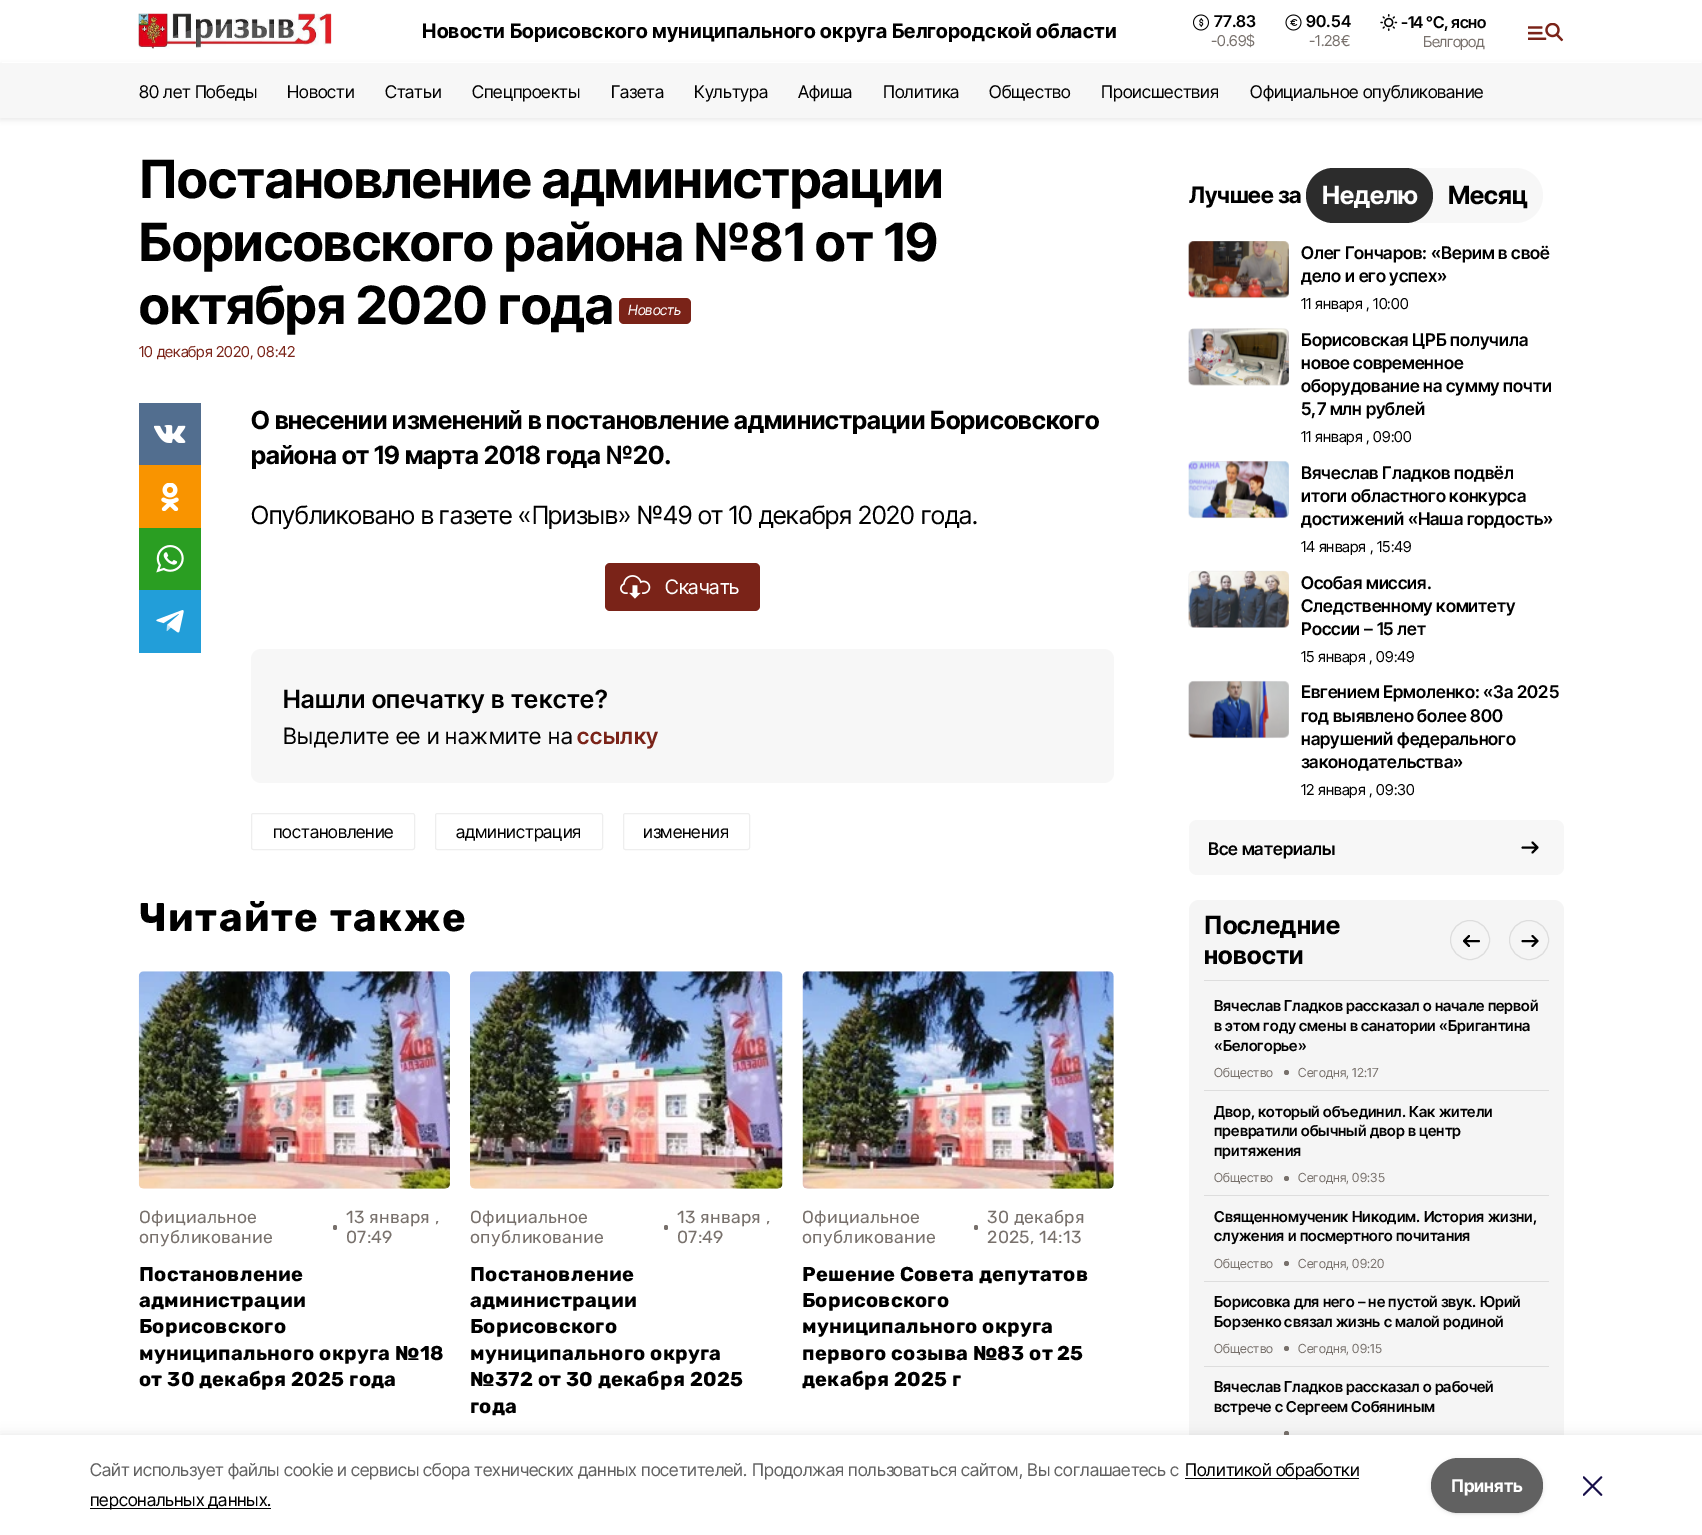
%!PS-Adobe-3.0
%%BoundingBox: 0 0 1702 1535
%%LanguageLevel: 3
%%Pages: 1
%%EndComments
%%BeginProlog
/m { moveto } bind def
/l { lineto } bind def
/f { fill } bind def
/S { stroke } bind def
/w { setlinewidth } bind def
/fn { [ exch dup neg 0 0 3 -1 roll 0 0 ] selectfont } def
/tx { moveto show } def
/bx { rectfill } def
/al { dup .setfillconstantalpha .setstrokeconstantalpha } def
/ci { newpath 0 360 arc closepath } def
/rr { 5 dict begin { /r /h /w /y /x } { exch def } forall
  x r add y moveto x w add y 2 copy h add r arct x w add y h add x 1 index r arct
  x y h add x y r arct x y 2 copy exch w add exch r arct closepath end } def
/sh { 12 dict begin { /a /b /q /h /w /y /x } { exch def } forall gsave /was 0 def
  9 -2 -9 { dup b mul 4 div /e exch def 1 sub .425 mul 2.718 exch exp 1 add a .99 .min exch div /now exch def
    1 1 now sub 1 was sub div sub al /was now def
    w h .min e 2 mul add 0 gt { x e sub y e sub w e 2 mul add h e 2 mul add
      q e add b .6 mul add w h .min 2 div e add .min 0 .max rr fill } if } for grestore end } def
/im { 5 dict begin { /h /w /y /x /name } { exch def } forall
  gsave x y translate w h scale
  w h 8 [w 0 0 h 0 0] name (r) file false 3 colorimage grestore end } def
%%EndProlog
%%BeginSetup
<< /PageSize [1702 1535] /PageUsesTransparency true >> setpagedevice
%%EndSetup
%%Page: 1 1
0 .pushpdf14devicefilter
0 1535 translate 1 -1 scale
4 setmiterlimit
1 setgray
0 0 1702 1535 bx
0 setgray
0 65 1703 55 0 2.5 0.08 sh
1 setgray
2 62 1699 1 bx
(image0.raw) 138 13 194 36 im
/InterTight-Bold 20 fn
0 setgray
422 38 m 0.25 0 (Новости Борисовского муниципального округа Белгородской области) ashow
(image1.raw) 1193 14 17 17 im
/InterTight-SemiBold 16.25 fn
1214 27 m 0.05 0 (77.83) ashow
/InterTight-Regular 15 fn
0.471 0.443 0.424 setrgbcolor
(-0.69$) 1211 46 tx
(image2.raw) 1285 14 17 17 im
/InterTight-SemiBold 16.25 fn
0 setgray
1306 27 m 0.05 0 (90.54) ashow
/InterTight-Regular 15 fn
0.471 0.443 0.424 setrgbcolor
(-1.28€) 1309 46 tx
(image3.raw) 1380 14 18 17 im
/InterTight-SemiBold 16.25 fn
0 setgray
1401 28 m -0.4 0 (-14 °С, ясно) ashow
/InterTight-Regular 15 fn
0.471 0.443 0.424 setrgbcolor
1423 47 m -0.5 0 (Белгород) ashow
(image4.raw) 1528 23 36 19 im
0.969 setgray
0 63 1702 55 bx
/InterTight-Regular 17.5 fn
0 setgray
(80 лет Победы) 139 98 tx
(Новости) 287 98 tx
(Статьи) 385 98 tx
(Спецпроекты) 472 98 tx
(Газета) 611 98 tx
(Культура) 694 98 tx
(Афиша) 798 98 tx
(Политика) 883 98 tx
(Общество) 989 98 tx
(Происшествия) 1101 98 tx
(Официальное опубликование) 1250 98 tx
/InterTight-Bold 52.5 fn
(Постановление администрации) 139 198 tx
(Борисовского района №81 от 19) 139 261 tx
(октября 2020 года) 139 324 tx
0.478 0.137 0.094 setrgbcolor
619 298 72 26 5 rr f
/InterTight-Italic 14 fn
1 setgray
(Новость) 628 315 tx
/InterTight-Regular 15 fn
0.478 0.137 0.094 setrgbcolor
(10 декабря 2020, 08:42) 139 357 tx
0.322 0.431 0.561 setrgbcolor
139 403 62 62 bx
(image5.raw) 154 425 32 18 im
0.976 0.58 0 setrgbcolor
139 465 62 63 bx
(image6.raw) 161 483 18 28 im
0.165 0.62 0.133 setrgbcolor
139 528 62 62 bx
(image7.raw) 156 545 28 28 im
0.133 0.62 0.851 setrgbcolor
139 590 62 63 bx
(image8.raw) 156 610 28 23 im
/InterTight-Bold 25 fn
0 setgray
(О внесении изменений в постановление администрации Борисовского) 251 429 tx
(района от 19 марта 2018 года №20.) 251 464 tx
/InterTight-Regular 25 fn
(Опубликовано в газете «Призыв» №49 от 10 декабря 2020 года.) 251 524 tx
0.478 0.137 0.094 setrgbcolor
605 563 155 48 5 rr f
(image9.raw) 620 575 31 24 im
/InterTight-Regular 20 fn
1 setgray
(Скачать) 665 594 tx
0.969 setgray
251 649 863 134 10 rr f
/InterTight-SemiBold 25 fn
0 setgray
283 708 m 0.6 0 (Нашли опечатку в тексте?) ashow
/InterTight-Regular 22.5 fn
283 744 m 0.6 0 (Выделите ее и нажмите на) ashow
/InterTight-SemiBold 22.5 fn
0.478 0.137 0.094 setrgbcolor
577 744 m 0.6 0 (ссылку) ashow
0.933 setgray
251.5 813.5 163 36 2 rr S
/InterTight-Regular 17.5 fn
0 setgray
(постановление) 273 838 tx
0.933 setgray
435.5 813.5 167 36 2 rr S
0 setgray
(администрация) 456 838 tx
0.933 setgray
623.5 813.5 126 36 2 rr S
0 setgray
(изменения) 643 838 tx
/Rubik-Bold 40 fn
139 931 m 1.5 0 (Читайте также) ashow
(image10.raw) 138 971 312 218 im
/Rubik-Regular 17.5 fn
0.471 0.443 0.424 setrgbcolor
139 1223 m 0.25 0 (Официальное) ashow
333 1225 4 5 2 rr f
139 1243 m 0.25 0 (опубликование) ashow
346 1223 m 0.25 0 (13 января ,) ashow
346 1243 m 0.25 0 (07:49) ashow
/Rubik-Bold 20 fn
0 setgray
139 1281 m 0.25 0 (Постановление) ashow
139 1307 m 0.25 0 (администрации) ashow
139 1333 m 0.25 0 (Борисовского) ashow
139 1360 m 0.25 0 (муниципального округа №18) ashow
139 1386 m 0.25 0 (от 30 декабря 2025 года) ashow
(image11.raw) 470 971 313 218 im
/Rubik-Regular 17.5 fn
0.471 0.443 0.424 setrgbcolor
470 1223 m 0.25 0 (Официальное) ashow
664 1225 4 5 2 rr f
470 1243 m 0.25 0 (опубликование) ashow
677 1223 m 0.25 0 (13 января ,) ashow
677 1243 m 0.25 0 (07:49) ashow
/Rubik-Bold 20 fn
0 setgray
470 1281 m 0.25 0 (Постановление) ashow
470 1307 m 0.25 0 (администрации) ashow
470 1333 m 0.25 0 (Борисовского) ashow
470 1360 m 0.25 0 (муниципального округа) ashow
470 1386 m 0.25 0 (№372 от 30 декабря 2025) ashow
470 1413 m 0.25 0 (года) ashow
(image12.raw) 802 971 312 218 im
/Rubik-Regular 17.5 fn
0.471 0.443 0.424 setrgbcolor
802 1223 m 0.25 0 (Официальное) ashow
974 1225 4 5 2 rr f
802 1243 m 0.25 0 (опубликование) ashow
987 1223 m 0.25 0 (30 декабря) ashow
987 1243 m 0.25 0 (2025, 14:13) ashow
/Rubik-Bold 20 fn
0 setgray
802 1281 m 0.25 0 (Решение Совета депутатов) ashow
802 1307 m 0.25 0 (Борисовского) ashow
802 1333 m 0.25 0 (муниципального округа) ashow
802 1360 m 0.25 0 (первого созыва №83 от 25) ashow
802 1386 m 0.25 0 (декабря 2025 г) ashow
/InterTight-Bold 22.5 fn
(Лучшее за) 1189 203 tx
0.969 setgray
1306 168 237 55 27.5 rr f
0.173 setgray
1306 168 127 55 27.5 rr f
/InterTight-Bold 25 fn
1 setgray
(Неделю) 1322 204 tx
0 setgray
(Месяц) 1448 204 tx
0.969 setgray
1189 241 100 57 5 rr f
(image13.raw) 1188 241 101 58 im
(image14.raw) 1188 241 101 57 im
/InterTight-SemiBold 17.5 fn
0 setgray
(Олег Гончаров: «Верим в своё) 1301 259 tx
(дело и его успех») 1301 282 tx
/InterTight-Regular 15 fn
(11 января , 10:00) 1301 309 tx
0.969 setgray
1189 329 100 56 5 rr f
(image15.raw) 1188 328 101 58 im
(image16.raw) 1188 328 101 58 im
/InterTight-SemiBold 17.5 fn
0 setgray
(Борисовская ЦРБ получила) 1301 346 tx
(новое современное) 1301 369 tx
(оборудование на сумму почти) 1301 392 tx
(5,7 млн рублей) 1301 415 tx
/InterTight-Regular 15 fn
(11 января , 09:00) 1301 442 tx
0.969 setgray
1189 461 100 57 5 rr f
(image18.raw) 1188 461 101 58 im
(image17.raw) 1188 460 101 58 im
/InterTight-SemiBold 17.5 fn
0 setgray
(Вячеслав Гладков подвёл) 1301 479 tx
(итоги областного конкурса) 1301 502 tx
(достижений «Наша гордость») 1301 525 tx
/InterTight-Regular 15 fn
(14 января , 15:49) 1301 552 tx
0.969 setgray
1189 571 100 57 5 rr f
(image19.raw) 1188 570 101 58 im
(image20.raw) 1188 571 101 57 im
/InterTight-SemiBold 17.5 fn
0 setgray
(Особая миссия.) 1301 589 tx
(Следственному комитету) 1301 612 tx
(России – 15 лет) 1301 635 tx
/InterTight-Regular 15 fn
(15 января , 09:49) 1301 662 tx
0.969 setgray
1189 681 100 57 5 rr f
(image22.raw) 1188 681 101 58 im
(image21.raw) 1188 680 101 58 im
/InterTight-SemiBold 17.5 fn
0 setgray
(Евгением Ермоленко: «За 2025) 1301 698 tx
(год выявлено более 800) 1301 722 tx
(нарушений федерального) 1301 745 tx
(законодательства») 1301 768 tx
/InterTight-Regular 15 fn
(12 января , 09:30) 1301 795 tx
0.969 setgray
1189 820 375 55 8 rr f
/InterTight-SemiBold 17.5 fn
0 setgray
(Все материалы) 1208 855 tx
1.9 w
1 setlinecap
1 setlinejoin
1532.5 852.5 m 1537.5 847.5 l 1537.5 847.5 m 1532.5 842.5 l 1537.5 847.5 m 1522.5 847.5 l S
0.961 setgray
1189 900 375 629 10 rr f
0.867 setgray
1204 980 345 1 bx
/InterTight-Bold 25 fn
0 setgray
1204 934 m 0.25 0 (Последние) ashow
1204 964 m 0.25 0 (новости) ashow
0.867 setgray
1 w
0 setlinecap
0 setlinejoin
1470 940 19.5 ci S
0 setgray
1.9 w
1 setlinecap
1 setlinejoin
1469 946 m 1464 941 l 1464 941 m 1469 936 l 1464 941 m 1479 941 l S
0.867 setgray
1 w
0 setlinecap
0 setlinejoin
1529 940 19.5 ci S
0 setgray
1.9 w
1 setlinecap
1 setlinejoin
1532.5 946 m 1537.5 941 l 1537.5 941 m 1532.5 936 l 1537.5 941 m 1522.5 941 l S
0.867 setgray
1204 1090 345 1 bx
/InterTight-SemiBold 15 fn
0 setgray
1214 1011 m 0.05 0 (Вячеслав Гладков рассказал о начале первой) ashow
1214 1031 m 0.05 0 (в этом году смены в санатории «Бригантина) ashow
1214 1051 m 0.05 0 («Белогорье») ashow
/InterTight-Regular 12.5 fn
0.471 0.443 0.424 setrgbcolor
1214 1077 m 0.1 0 (Общество) ashow
1286.5 1072.5 2.5 ci f
1298 1077 m 0.1 0 (Сегодня, 12:17) ashow
0.867 setgray
1204 1195 345 1 bx
/InterTight-SemiBold 15 fn
0 setgray
1214 1117 m 0.05 0 (Двор, который объединил. Как жители) ashow
1214 1136 m 0.05 0 (превратили обычный двор в центр) ashow
1214 1156 m 0.05 0 (притяжения) ashow
/InterTight-Regular 12.5 fn
0.471 0.443 0.424 setrgbcolor
1214 1182 m 0.1 0 (Общество) ashow
1286.5 1178.5 2.5 ci f
1298 1182 m 0.1 0 (Сегодня, 09:35) ashow
0.867 setgray
1204 1281 345 1 bx
/InterTight-SemiBold 15 fn
0 setgray
1214 1222 m 0.05 0 (Священномученик Никодим. История жизни,) ashow
1214 1241 m 0.05 0 (служения и посмертного почитания) ashow
/InterTight-Regular 12.5 fn
0.471 0.443 0.424 setrgbcolor
1214 1268 m 0.1 0 (Общество) ashow
1286.5 1263.5 2.5 ci f
1298 1268 m 0.1 0 (Сегодня, 09:20) ashow
0.867 setgray
1204 1366 345 1 bx
/InterTight-SemiBold 15 fn
0 setgray
1214 1307 m 0.05 0 (Борисовка для него – не пустой звук. Юрий) ashow
1214 1327 m 0.05 0 (Борзенко связал жизнь с малой родиной) ashow
/InterTight-Regular 12.5 fn
0.471 0.443 0.424 setrgbcolor
1214 1353 m 0.1 0 (Общество) ashow
1286.5 1348.5 2.5 ci f
1298 1353 m 0.1 0 (Сегодня, 09:15) ashow
/InterTight-SemiBold 15 fn
0 setgray
1214 1392 m 0.05 0 (Вячеслав Гладков рассказал о рабочей) ashow
1214 1412 m 0.05 0 (встрече с Сергеем Собяниным) ashow
0.471 0.443 0.424 setrgbcolor
1286.5 1433.5 2.5 ci f
0 setgray
0 1435 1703 100 0 6 0.1 sh
1 setgray
0 1435 1702 100 bx
/InterTight-Regular 17.5 fn
0.38 setgray
(Cайт использует файлы cookie и сервисы сбора технических данных посетителей.) 90 1476 tx
(Продолжая пользоваться сайтом, Вы соглашаетесь с) 752 1476 tx
0 setgray
1185 1478 174 1 bx
(Политикой обработки) 1185 1476 tx
90 1508 181 1 bx
(персональных данных.) 90 1506 tx
1433 1460 108 53 26.5 1 0.1 sh
1431 1459 112 55 27.5 2 0.1 sh
0.38 setgray
1431 1458 112 55 27.5 rr f
/InterTight-Bold 17.5 fn
1 setgray
(Принять) 1451 1492 tx
(image23.raw) 1583 1476 20 20 im
.poppdf14devicefilter showpage
%%EOF
